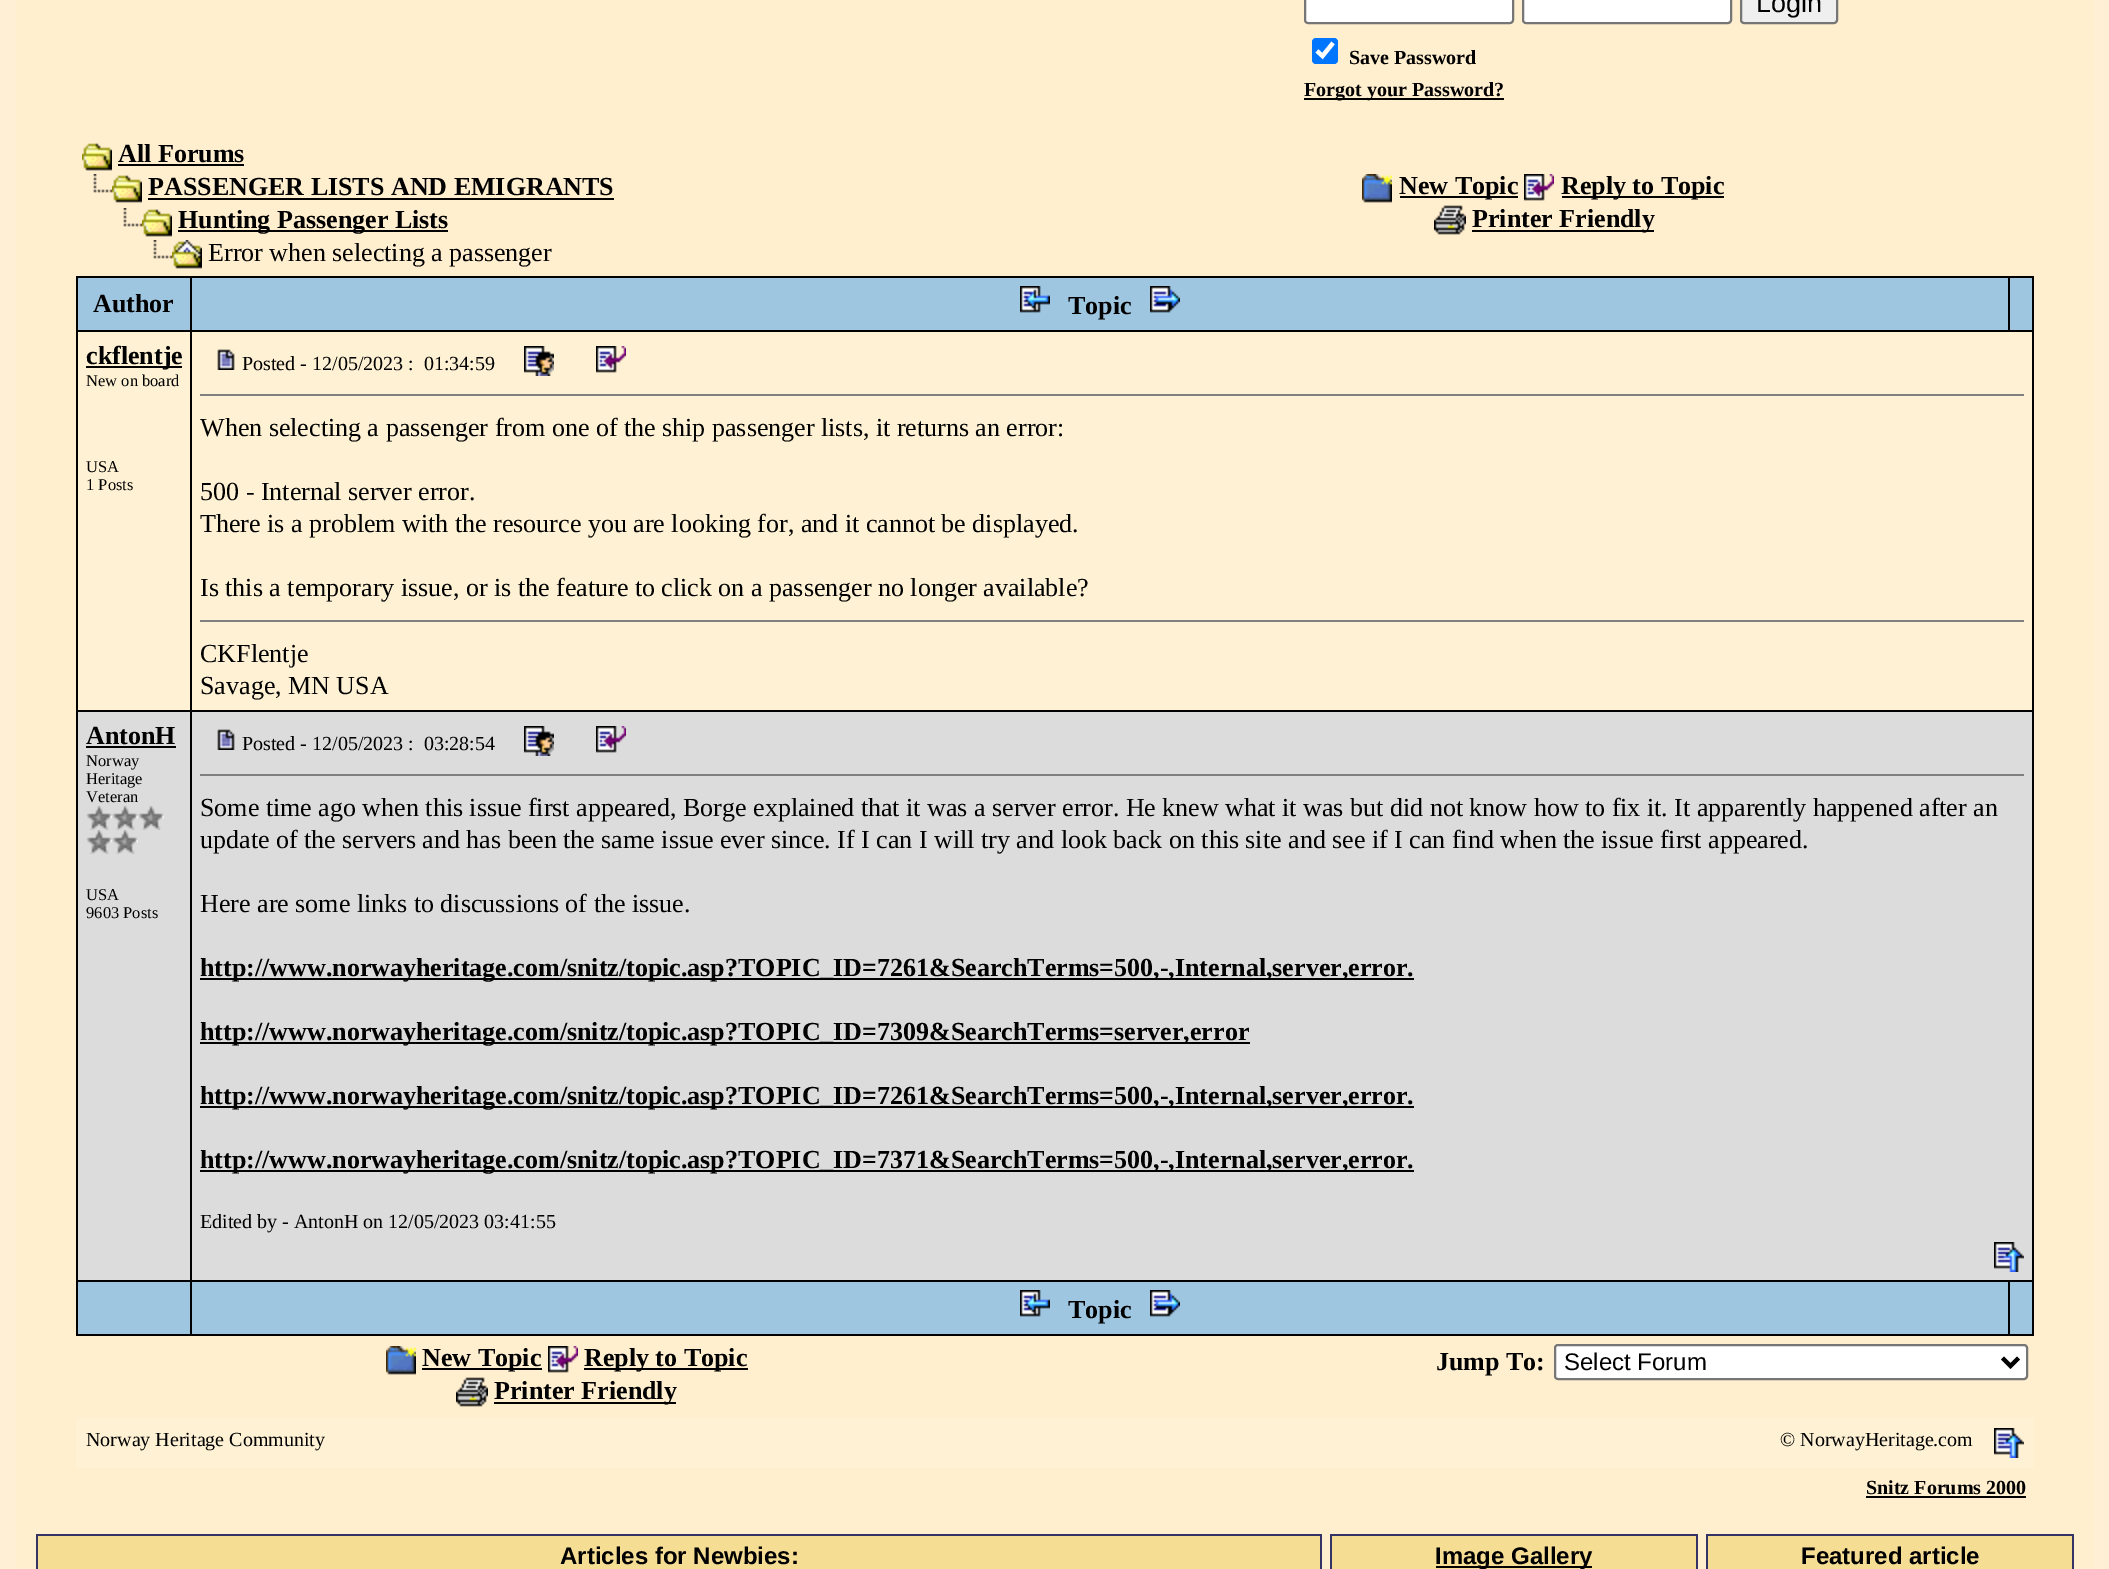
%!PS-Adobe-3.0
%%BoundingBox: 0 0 2109 1569
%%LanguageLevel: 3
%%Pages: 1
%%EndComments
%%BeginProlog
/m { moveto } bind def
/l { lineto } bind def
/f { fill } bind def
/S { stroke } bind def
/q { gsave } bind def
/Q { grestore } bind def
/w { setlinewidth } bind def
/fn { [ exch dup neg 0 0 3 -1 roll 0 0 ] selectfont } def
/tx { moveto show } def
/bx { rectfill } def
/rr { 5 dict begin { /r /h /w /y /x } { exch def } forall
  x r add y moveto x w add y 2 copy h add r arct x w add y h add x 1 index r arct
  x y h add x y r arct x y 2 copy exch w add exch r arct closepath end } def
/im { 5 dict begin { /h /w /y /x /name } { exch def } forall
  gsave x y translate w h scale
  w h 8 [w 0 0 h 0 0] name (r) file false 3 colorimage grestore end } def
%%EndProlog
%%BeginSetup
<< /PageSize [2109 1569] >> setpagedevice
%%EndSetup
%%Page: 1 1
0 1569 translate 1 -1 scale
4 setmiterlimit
1 0.937 0.835 setrgbcolor
0 0 2109 1569 bx
1 0.937 0.812 setrgbcolor
16 0 2078 1569 bx
1 setgray
1305 -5 208 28 3 rr q f Q
0.463 setgray
2 w
S
1 setgray
1523 -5 208 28 3 rr q f Q
0.463 setgray
S
0.937 setgray
1741 -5 96 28 3 rr q f Q
0.463 setgray
S
/LiberationSans-Regular 27 fn
0 setgray
(Login) 1756 12 tx
0 0.459 1 setrgbcolor
1312 38 26 26 4 rr f
1 setgray
4.2 w
1317 51 m 1322.5 56 l 1333 43 l S
/LiberationSerif-Bold 20 fn
0 setgray
(Save Password) 1349 64 tx
1304 98 200 2 bx
(Forgot your Password?) 1304 96 tx
(image0.raw) 82 143 30 28 im
/LiberationSerif-Bold 26 fn
(All Forums) 118 162 tx
118 164 126 2 bx
(image1.raw) 93 174 19 19 im
(image0.raw) 112 175 30 28 im
(PASSENGER LISTS AND EMIGRANTS) 148 195 tx
148 198 466 2 bx
(image1.raw) 123 208 19 19 im
(image0.raw) 142 209 30 28 im
178 230 270 2 bx
(Hunting Passenger Lists) 178 228 tx
(image1.raw) 153 240 19 19 im
(image2.raw) 172 240 30 29 im
/LiberationSerif-Regular 26 fn
(Error when selecting a passenger) 208 261 tx
(image3.raw) 1362 174 30 29 im
1400 196 118 2 bx
/LiberationSerif-Bold 26 fn
(New Topic) 1399 194 tx
(image4.raw) 1524 174 30 27 im
1562 196 162 2 bx
(Reply to Topic) 1561 194 tx
(image5.raw) 1434 205 32 30 im
1472 230 182 2 bx
(Printer Friendly) 1472 227 tx
76 276 1958 1060 bx
0.624 0.776 0.882 setrgbcolor
78 278 112 52 bx
0 setgray
(Author) 93 312 tx
0.624 0.776 0.882 setrgbcolor
192 278 1816 52 bx
(image6.raw) 1020 286 30 27 im
0 setgray
(Topic) 1068 314 tx
(image7.raw) 1150 286 30 27 im
0.624 0.776 0.882 setrgbcolor
2010 278 22 52 bx
0.996 0.945 0.831 setrgbcolor
78 332 112 378 bx
0 setgray
86 366 96 2 bx
(ckflentje) 86 364 tx
/LiberationSerif-Regular 16.5 fn
(New on board) 86 386 tx
(USA) 86 472 tx
(1 Posts) 86 490 tx
0.996 0.945 0.831 setrgbcolor
192 332 1840 378 bx
(image8.raw) 217 349 18 21 im
/LiberationSerif-Regular 20 fn
0 setgray
(Posted - 12/05/2023 :  01:34:59) 242 370 tx
(image9.raw) 524 346 30 30 im
(image10.raw) 596 346 30 27 im
0.502 setgray
200 394 1824 2 bx
/LiberationSerif-Regular 26 fn
0 setgray
(When selecting a passenger from one of the ship passenger lists, it returns an error:) 200 436 tx
(500 - Internal server error.) 200 500 tx
(There is a problem with the resource you are looking for, and it cannot be displayed.) 200 532 tx
(Is this a temporary issue, or is the feature to click on a passenger no longer available?) 200 596 tx
0.502 setgray
200 620 1824 2 bx
0 setgray
(CKFlentje) 200 662 tx
(Savage, MN USA) 200 694 tx
0.863 setgray
78 712 112 568 bx
/LiberationSerif-Bold 26 fn
0 setgray
(AntonH) 86 744 tx
86 746 90 2 bx
/LiberationSerif-Regular 16.5 fn
(Norway) 86 766 tx
(Heritage) 86 784 tx
(Veteran) 86 802 tx
(image11.raw) 86 806 26 24 im
(image11.raw) 112 806 26 24 im
(image11.raw) 138 806 26 24 im
(image11.raw) 86 830 26 24 im
(image11.raw) 112 830 26 24 im
(USA) 86 900 tx
(9603 Posts) 86 918 tx
0.863 setgray
192 712 1840 568 bx
(image12.raw) 217 729 18 21 im
/LiberationSerif-Regular 20 fn
0 setgray
(Posted - 12/05/2023 :  03:28:54) 242 750 tx
(image13.raw) 524 726 30 30 im
(image14.raw) 596 726 30 27 im
0.502 setgray
200 774 1824 2 bx
/LiberationSerif-Regular 26 fn
0 setgray
(Some time ago when this issue first appeared, Borge explained that it was a server error. He knew what it was but did not know how to fix it. It apparently happened after an) 200 816 tx
(update of the servers and has been the same issue ever since. If I can I will try and look back on this site and see if I can find when the issue first appeared.) 200 848 tx
(Here are some links to discussions of the issue.) 200 912 tx
200 978 1214 2 bx
/LiberationSerif-Bold 26 fn
(http://www.norwayheritage.com/snitz/topic.asp?TOPIC_ID=7261&SearchTerms=500,-,Internal,server,error.) 200 976 tx
200 1042 1050 2 bx
(http://www.norwayheritage.com/snitz/topic.asp?TOPIC_ID=7309&SearchTerms=server,error) 200 1040 tx
200 1106 1214 2 bx
(http://www.norwayheritage.com/snitz/topic.asp?TOPIC_ID=7261&SearchTerms=500,-,Internal,server,error.) 200 1104 tx
200 1170 1214 2 bx
(http://www.norwayheritage.com/snitz/topic.asp?TOPIC_ID=7371&SearchTerms=500,-,Internal,server,error.) 200 1168 tx
/LiberationSerif-Regular 20 fn
(Edited by - AntonH on 12/05/2023 03:41:55) 200 1228 tx
(image15.raw) 1994 1242 30 30 im
0.624 0.776 0.882 setrgbcolor
78 1282 112 52 bx
192 1282 1816 52 bx
(image6.raw) 1020 1290 30 27 im
/LiberationSerif-Bold 26 fn
0 setgray
(Topic) 1068 1318 tx
(image7.raw) 1150 1290 30 27 im
0.624 0.776 0.882 setrgbcolor
2010 1282 22 52 bx
(image3.raw) 386 1346 30 29 im
0 setgray
422 1368 120 2 bx
(New Topic) 422 1366 tx
(image4.raw) 548 1346 30 27 im
584 1368 164 2 bx
(Reply to Topic) 584 1366 tx
(image5.raw) 456 1377 32 30 im
494 1402 182 2 bx
(Printer Friendly) 494 1399 tx
(Jump To:) 1436 1370 tx
1 setgray
1555 1345 472 34 3 rr q f Q
0.463 setgray
2 w
S
0 setgray
4 w
2002.5 1358 m 2010.5 1366 l 2018.5 1358 l S
/LiberationSans-Regular 24 fn
(Select Forum) 1564 1370 tx
0.996 0.945 0.831 setrgbcolor
76 1418 1958 50 bx
/LiberationSerif-Regular 20 fn
0 setgray
(Norway Heritage Community) 86 1446 tx
(© NorwayHeritage.com) 1780 1446 tx
(image16.raw) 1994 1428 30 30 im
/LiberationSerif-Bold 20 fn
(Snitz Forums 2000) 1866 1494 tx
1866 1496 160 2 bx
0.2 0.2 0.4 setrgbcolor
36 1534 1286 35 bx
0.961 0.867 0.58 setrgbcolor
38 1536 1282 33 bx
/LiberationSans-Bold 24 fn
0 setgray
(Articles for Newbies:) 560 1564 tx
0.2 0.2 0.4 setrgbcolor
1330 1534 368 35 bx
0.961 0.867 0.58 setrgbcolor
1332 1536 364 33 bx
0 setgray
1436 1566 156 2 bx
(Image Gallery) 1435 1564 tx
0.2 0.2 0.4 setrgbcolor
1706 1534 368 35 bx
0.961 0.867 0.58 setrgbcolor
1708 1536 364 33 bx
0 setgray
(Featured article) 1801 1564 tx
showpage
%%EOF
